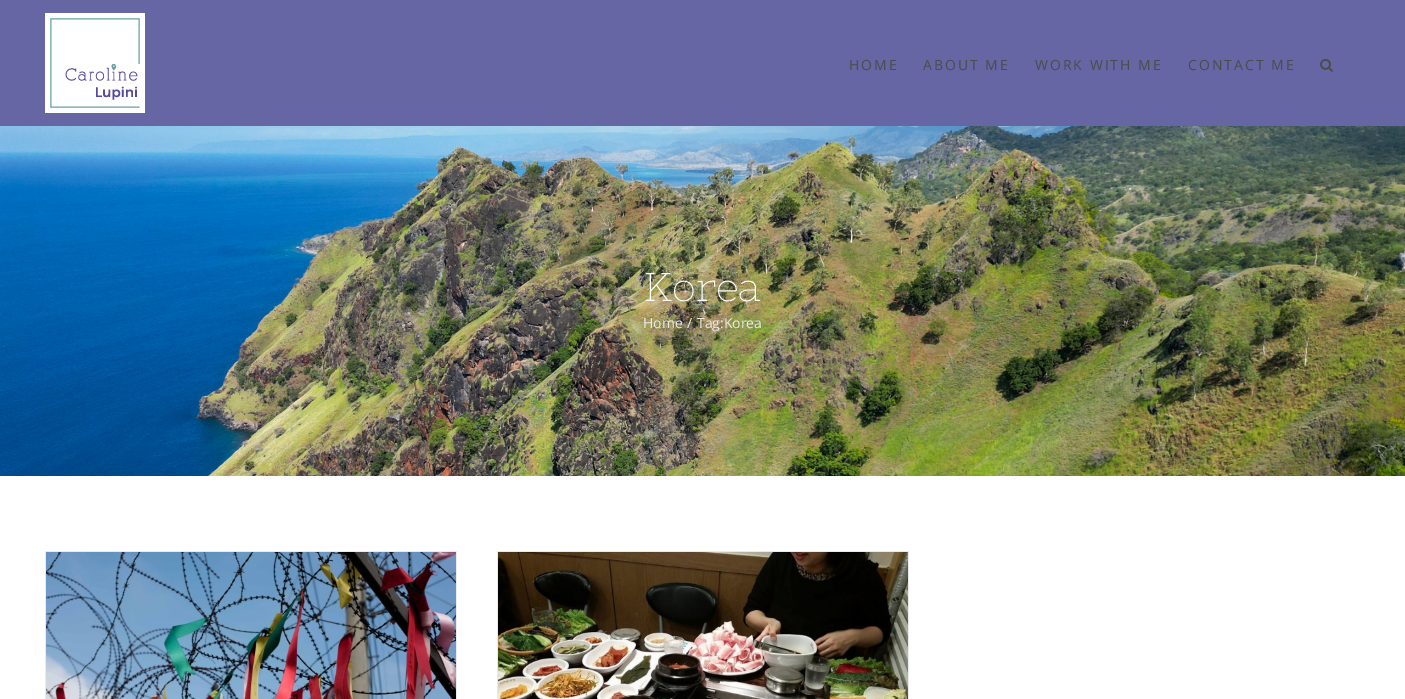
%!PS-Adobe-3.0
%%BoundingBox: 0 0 1405 699
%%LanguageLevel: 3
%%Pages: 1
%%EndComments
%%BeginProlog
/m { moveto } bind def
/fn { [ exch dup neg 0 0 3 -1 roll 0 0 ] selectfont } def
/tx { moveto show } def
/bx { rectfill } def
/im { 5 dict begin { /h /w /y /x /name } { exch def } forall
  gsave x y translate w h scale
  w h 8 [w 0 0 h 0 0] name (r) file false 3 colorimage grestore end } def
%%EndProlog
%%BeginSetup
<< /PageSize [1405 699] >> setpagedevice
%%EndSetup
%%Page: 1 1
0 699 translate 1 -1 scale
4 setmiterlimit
1 setgray
0 0 1405 699 bx
0.4 0.4 0.643 setrgbcolor
0 0 1405 126 bx
(image0.raw) 45 13 100 100 im
/OpenSans-Regular 14 fn
0.298 setgray
849 70 m 2 0 (HOME) ashow
923 70 m 2 0 (ABOUT ME) ashow
1035 70 m 2 0 (WORK WITH ME) ashow
1188 70 m 2 0 (CONTACT ME) ashow
(image1.raw) 1320 58 13 14 im
(image2.raw) 0 126 1405 350 im
/NixieOne-Regular 40 fn
1 setgray
(Korea) 644 301 tx
/OpenSans-Regular 14 fn
0.918 setgray
(Home) 643 328 tx
(/) 687 328 tx
(Tag:Korea) 697 328 tx
0.922 0.918 0.918 setrgbcolor
45 551 412 1 bx
456 551 1 148 bx
45 551 1 148 bx
(image3.raw) 46 552 410 147 im
497 551 412 1 bx
908 551 1 148 bx
497 551 1 148 bx
(image4.raw) 498 552 410 147 im
showpage
%%EOF
